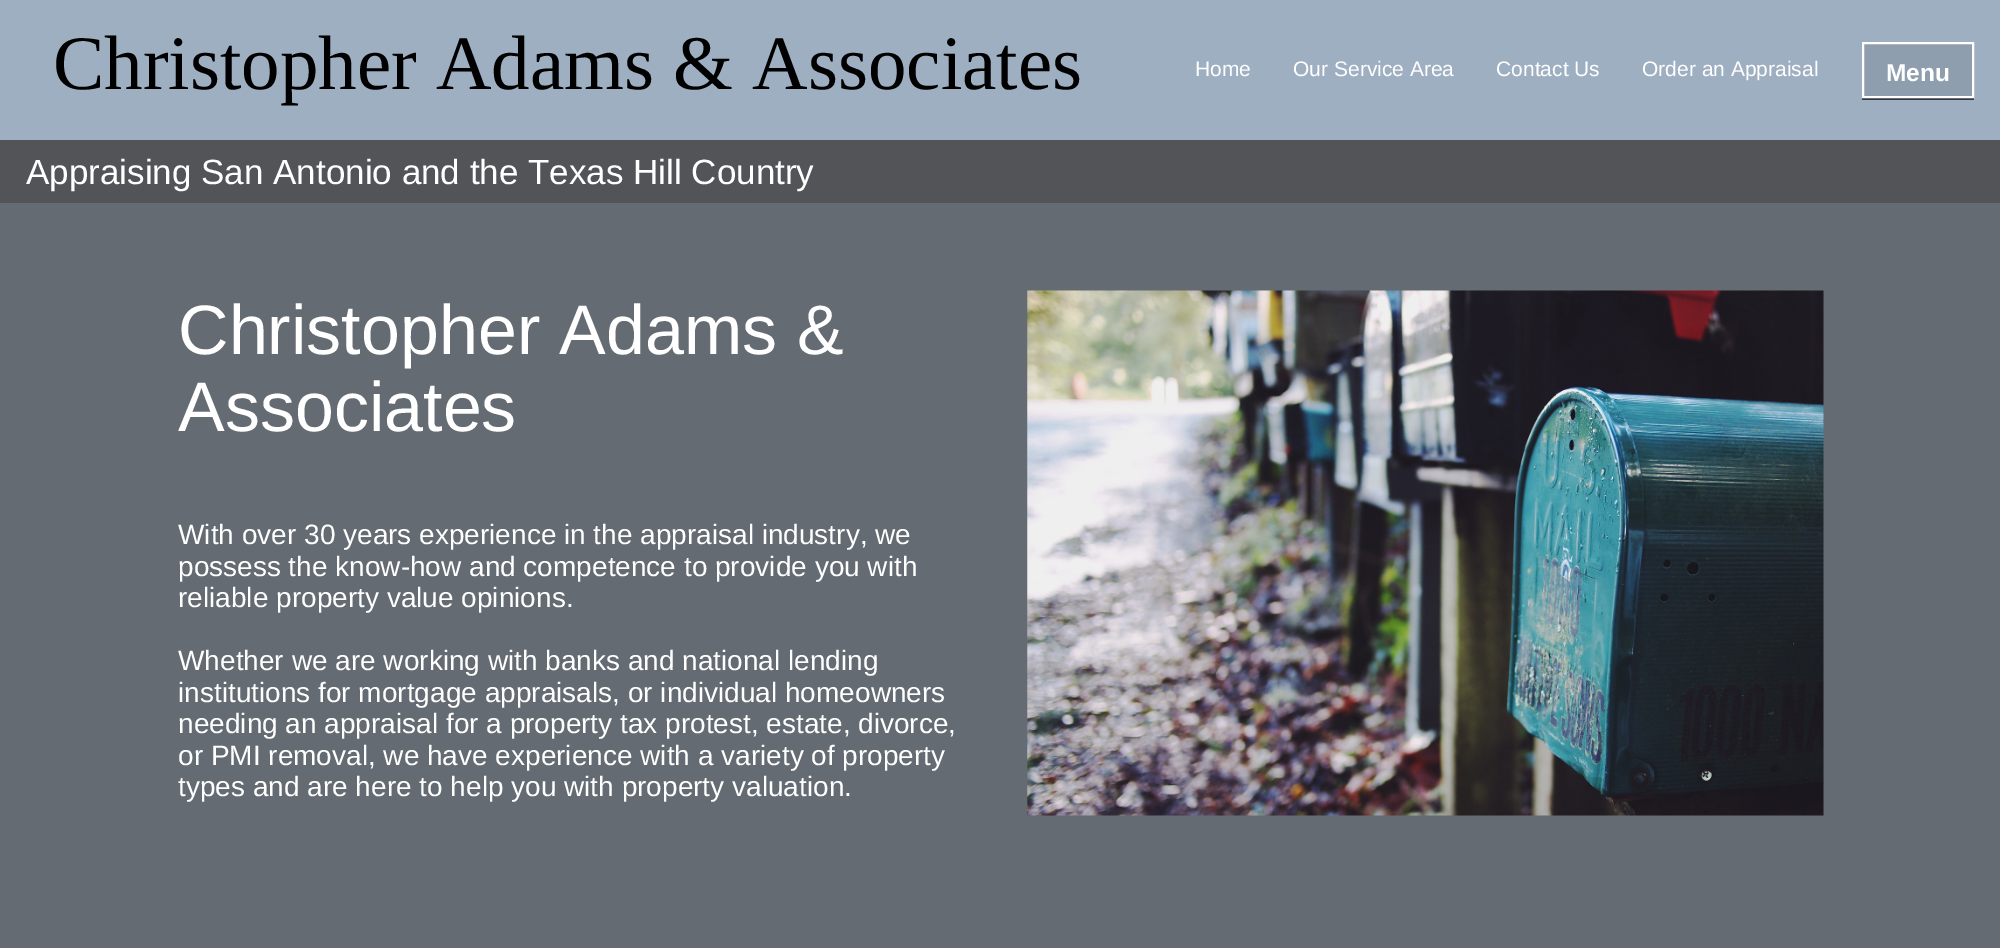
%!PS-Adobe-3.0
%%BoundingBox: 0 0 2000 948
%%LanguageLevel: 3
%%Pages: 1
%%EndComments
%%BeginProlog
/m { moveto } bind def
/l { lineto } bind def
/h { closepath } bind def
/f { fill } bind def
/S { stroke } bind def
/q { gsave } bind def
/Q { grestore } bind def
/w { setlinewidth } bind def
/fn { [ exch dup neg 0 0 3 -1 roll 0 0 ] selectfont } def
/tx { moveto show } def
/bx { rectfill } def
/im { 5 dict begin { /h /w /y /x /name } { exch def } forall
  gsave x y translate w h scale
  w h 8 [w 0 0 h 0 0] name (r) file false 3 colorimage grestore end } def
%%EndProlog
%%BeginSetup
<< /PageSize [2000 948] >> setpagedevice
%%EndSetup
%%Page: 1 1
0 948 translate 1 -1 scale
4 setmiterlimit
0.322 0.329 0.345 setrgbcolor
0 0 2000 948 bx
0.624 0.686 0.761 setrgbcolor
0 0 2000 140 bx
/LiberationSerif-Regular 77 fn
0 setgray
(Christopher Adams & Associates) 53 89 tx
/LiberationSans-Regular 21 fn
1 setgray
(Home) 1195 76 tx
(Our Service Area) 1293 76 tx
(Contact Us) 1496 76 tx
(Order an Appraisal) 1642 76 tx
0.204 0.224 0.247 setrgbcolor
1862 98 112 2 bx
0.561 0.62 0.686 setrgbcolor
1863 43 m 1973 43 l 1973 97 l 1863 97 l h q f Q
1 setgray
2 w
S
/LiberationSans-Bold 24.5 fn
(Menu) 1886 81 tx
/LiberationSans-Regular 35 fn
(Appraising San Antonio and the Texas Hill Country) 26 184 tx
0.392 0.42 0.451 setrgbcolor
0 203 2000 745 bx
/LiberationSans-Regular 70 fn
1 setgray
(Christopher Adams &) 178 354 tx
(Associates) 178 431 tx
/LiberationSans-Regular 28 fn
(With over 30 years experience in the appraisal industry, we) 178 544 tx
(possess the know-how and competence to provide you with) 178 576 tx
(reliable property value opinions.) 178 607 tx
(image0.raw) 1027 290 797 526 im
(Whether we are working with banks and national lending) 178 670 tx
(institutions for mortgage appraisals, or individual homeowners) 178 702 tx
(needing an appraisal for a property tax protest, estate, divorce,) 178 733 tx
(or PMI removal, we have experience with a variety of property) 178 765 tx
(types and are here to help you with property valuation.) 178 796 tx
showpage
%%EOF
